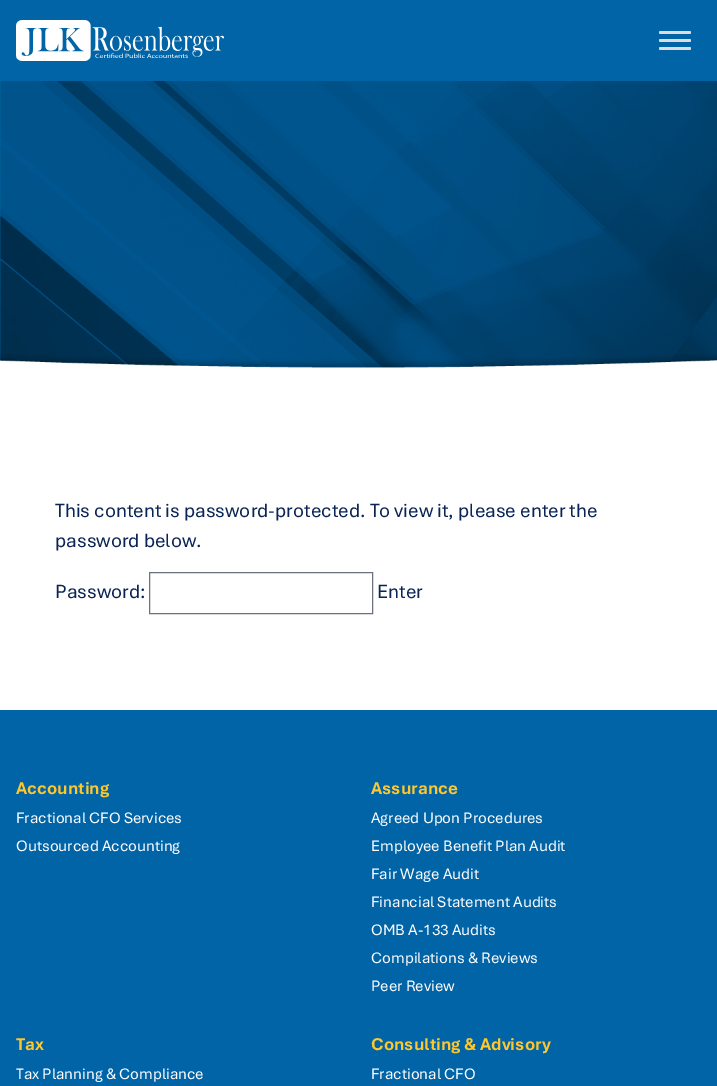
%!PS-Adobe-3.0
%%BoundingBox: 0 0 717 1086
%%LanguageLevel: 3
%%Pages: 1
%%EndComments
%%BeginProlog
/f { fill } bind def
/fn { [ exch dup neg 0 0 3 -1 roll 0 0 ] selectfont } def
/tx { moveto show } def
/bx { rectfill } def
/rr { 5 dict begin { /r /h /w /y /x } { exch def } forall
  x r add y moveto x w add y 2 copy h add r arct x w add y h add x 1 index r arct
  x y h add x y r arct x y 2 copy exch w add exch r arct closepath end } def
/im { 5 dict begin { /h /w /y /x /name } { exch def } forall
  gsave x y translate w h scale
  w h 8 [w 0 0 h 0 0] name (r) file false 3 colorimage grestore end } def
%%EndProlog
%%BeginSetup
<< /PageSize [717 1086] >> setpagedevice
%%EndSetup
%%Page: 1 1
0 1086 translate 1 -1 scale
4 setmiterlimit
1 setgray
0 0 717 1086 bx
0 0.392 0.655 setrgbcolor
0 0 717 81 bx
(image0.raw) 16 20 208 41 im
0.867 setgray
659 31 32 3 1.5 rr f
659 39 32 3 1.5 rr f
659 47 32 3 1.5 rr f
(image1.raw) 0 81 717 287 im
(image2.raw) 0 354 717 46 im
/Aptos-Regular 20 fn
0.039 0.145 0.333 setrgbcolor
(This content is password-protected. To view it, please enter the) 55 517 tx
(password below.) 55 547 tx
(Password:) 55 598 tx
0.42 0.447 0.502 setrgbcolor
149.5 572.5 223 41 rectstroke
0.039 0.145 0.333 setrgbcolor
(Enter) 377 598 tx
0 0.392 0.655 setrgbcolor
0 710 717 376 bx
/Aptos-Bold 18 fn
1 0.78 0.18 setrgbcolor
(Accounting) 16 794 tx
/Aptos-Regular 16 fn
1 setgray
(Fractional CFO Services) 16 823 tx
(Outsourced Accounting) 16 851 tx
/Aptos-Bold 18 fn
1 0.78 0.18 setrgbcolor
(Assurance) 371 794 tx
/Aptos-Regular 16 fn
1 setgray
(Agreed Upon Procedures) 371 823 tx
(Employee Benefit Plan Audit) 371 851 tx
(Fair Wage Audit) 371 879 tx
(Financial Statement Audits) 371 907 tx
(OMB A-133 Audits) 371 935 tx
(Compilations & Reviews) 371 963 tx
(Peer Review) 371 991 tx
/Aptos-Bold 18 fn
1 0.78 0.18 setrgbcolor
(Tax) 16 1050 tx
/Aptos-Regular 16 fn
1 setgray
(Tax Planning & Compliance) 16 1079 tx
/Aptos-Bold 18 fn
1 0.78 0.18 setrgbcolor
(Consulting & Advisory) 371 1050 tx
/Aptos-Regular 16 fn
1 setgray
(Fractional CFO) 371 1079 tx
showpage
%%EOF
